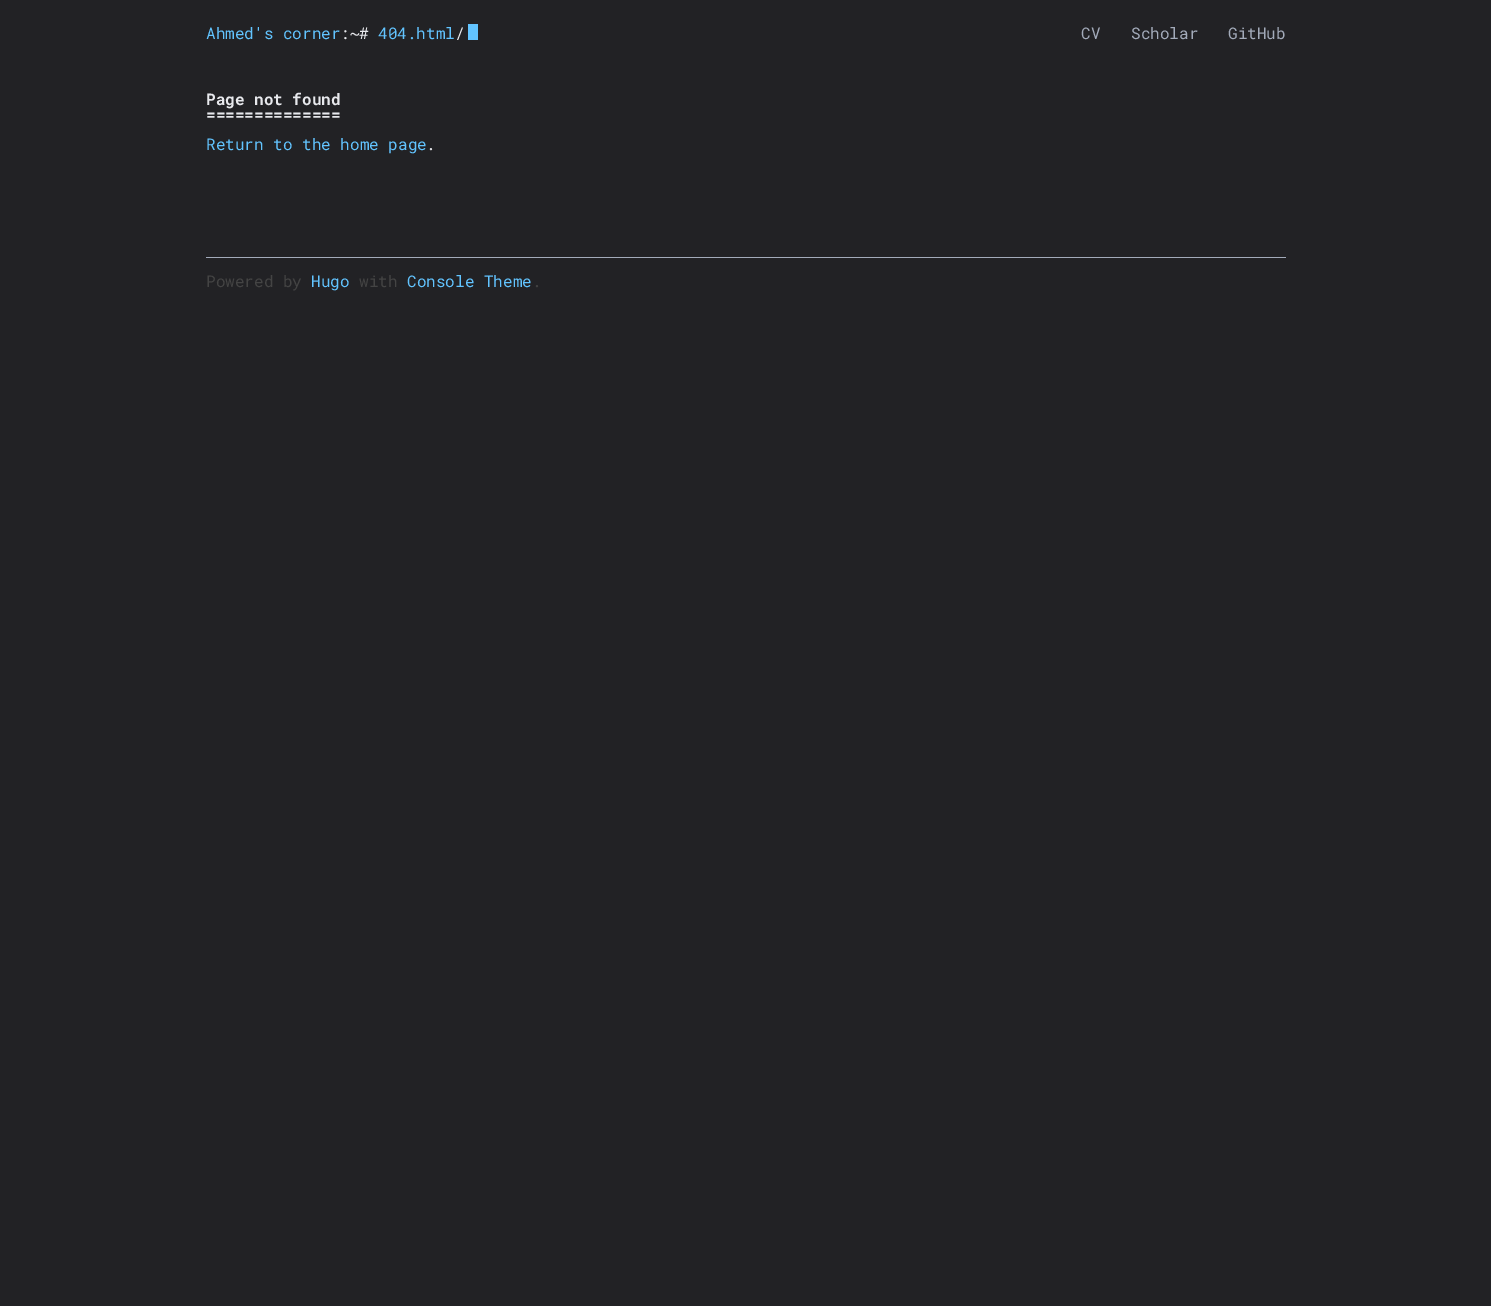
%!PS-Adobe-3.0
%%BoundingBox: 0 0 1491 1306
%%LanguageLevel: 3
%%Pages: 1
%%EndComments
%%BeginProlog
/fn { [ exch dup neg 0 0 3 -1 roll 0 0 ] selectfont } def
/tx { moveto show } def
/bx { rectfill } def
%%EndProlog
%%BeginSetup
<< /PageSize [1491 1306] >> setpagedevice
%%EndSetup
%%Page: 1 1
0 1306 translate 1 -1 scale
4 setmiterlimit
0.133 0.133 0.145 setrgbcolor
0 0 1491 1306 bx
/RobotoMono-Regular 16 fn
0.384 0.769 1 setrgbcolor
(Ahmed's corner) 206 39 tx
0.91 0.914 0.929 setrgbcolor
(:~#) 340 39 tx
0.384 0.769 1 setrgbcolor
(404.html) 378 39 tx
0.91 0.914 0.929 setrgbcolor
(/) 455 39 tx
0.384 0.769 1 setrgbcolor
468 24 10 16 bx
0.639 0.671 0.729 setrgbcolor
(CV) 1081 39 tx
(Scholar) 1131 39 tx
(GitHub) 1228 39 tx
/RobotoMono-Bold 16 fn
0.91 0.914 0.929 setrgbcolor
(Page not found) 206 105 tx
(==============) 206 120 tx
/RobotoMono-Regular 16 fn
0.384 0.769 1 setrgbcolor
(Return to the home page) 206 150 tx
0.91 0.914 0.929 setrgbcolor
(.) 426 150 tx
0.639 0.671 0.729 setrgbcolor
206 257 1080 1 bx
0.267 setgray
(Powered by) 206 287 tx
0.384 0.769 1 setrgbcolor
(Hugo) 311 287 tx
0.267 setgray
(with) 359 287 tx
0.384 0.769 1 setrgbcolor
(Console Theme) 407 287 tx
0.267 setgray
(.) 532 287 tx
showpage
%%EOF
